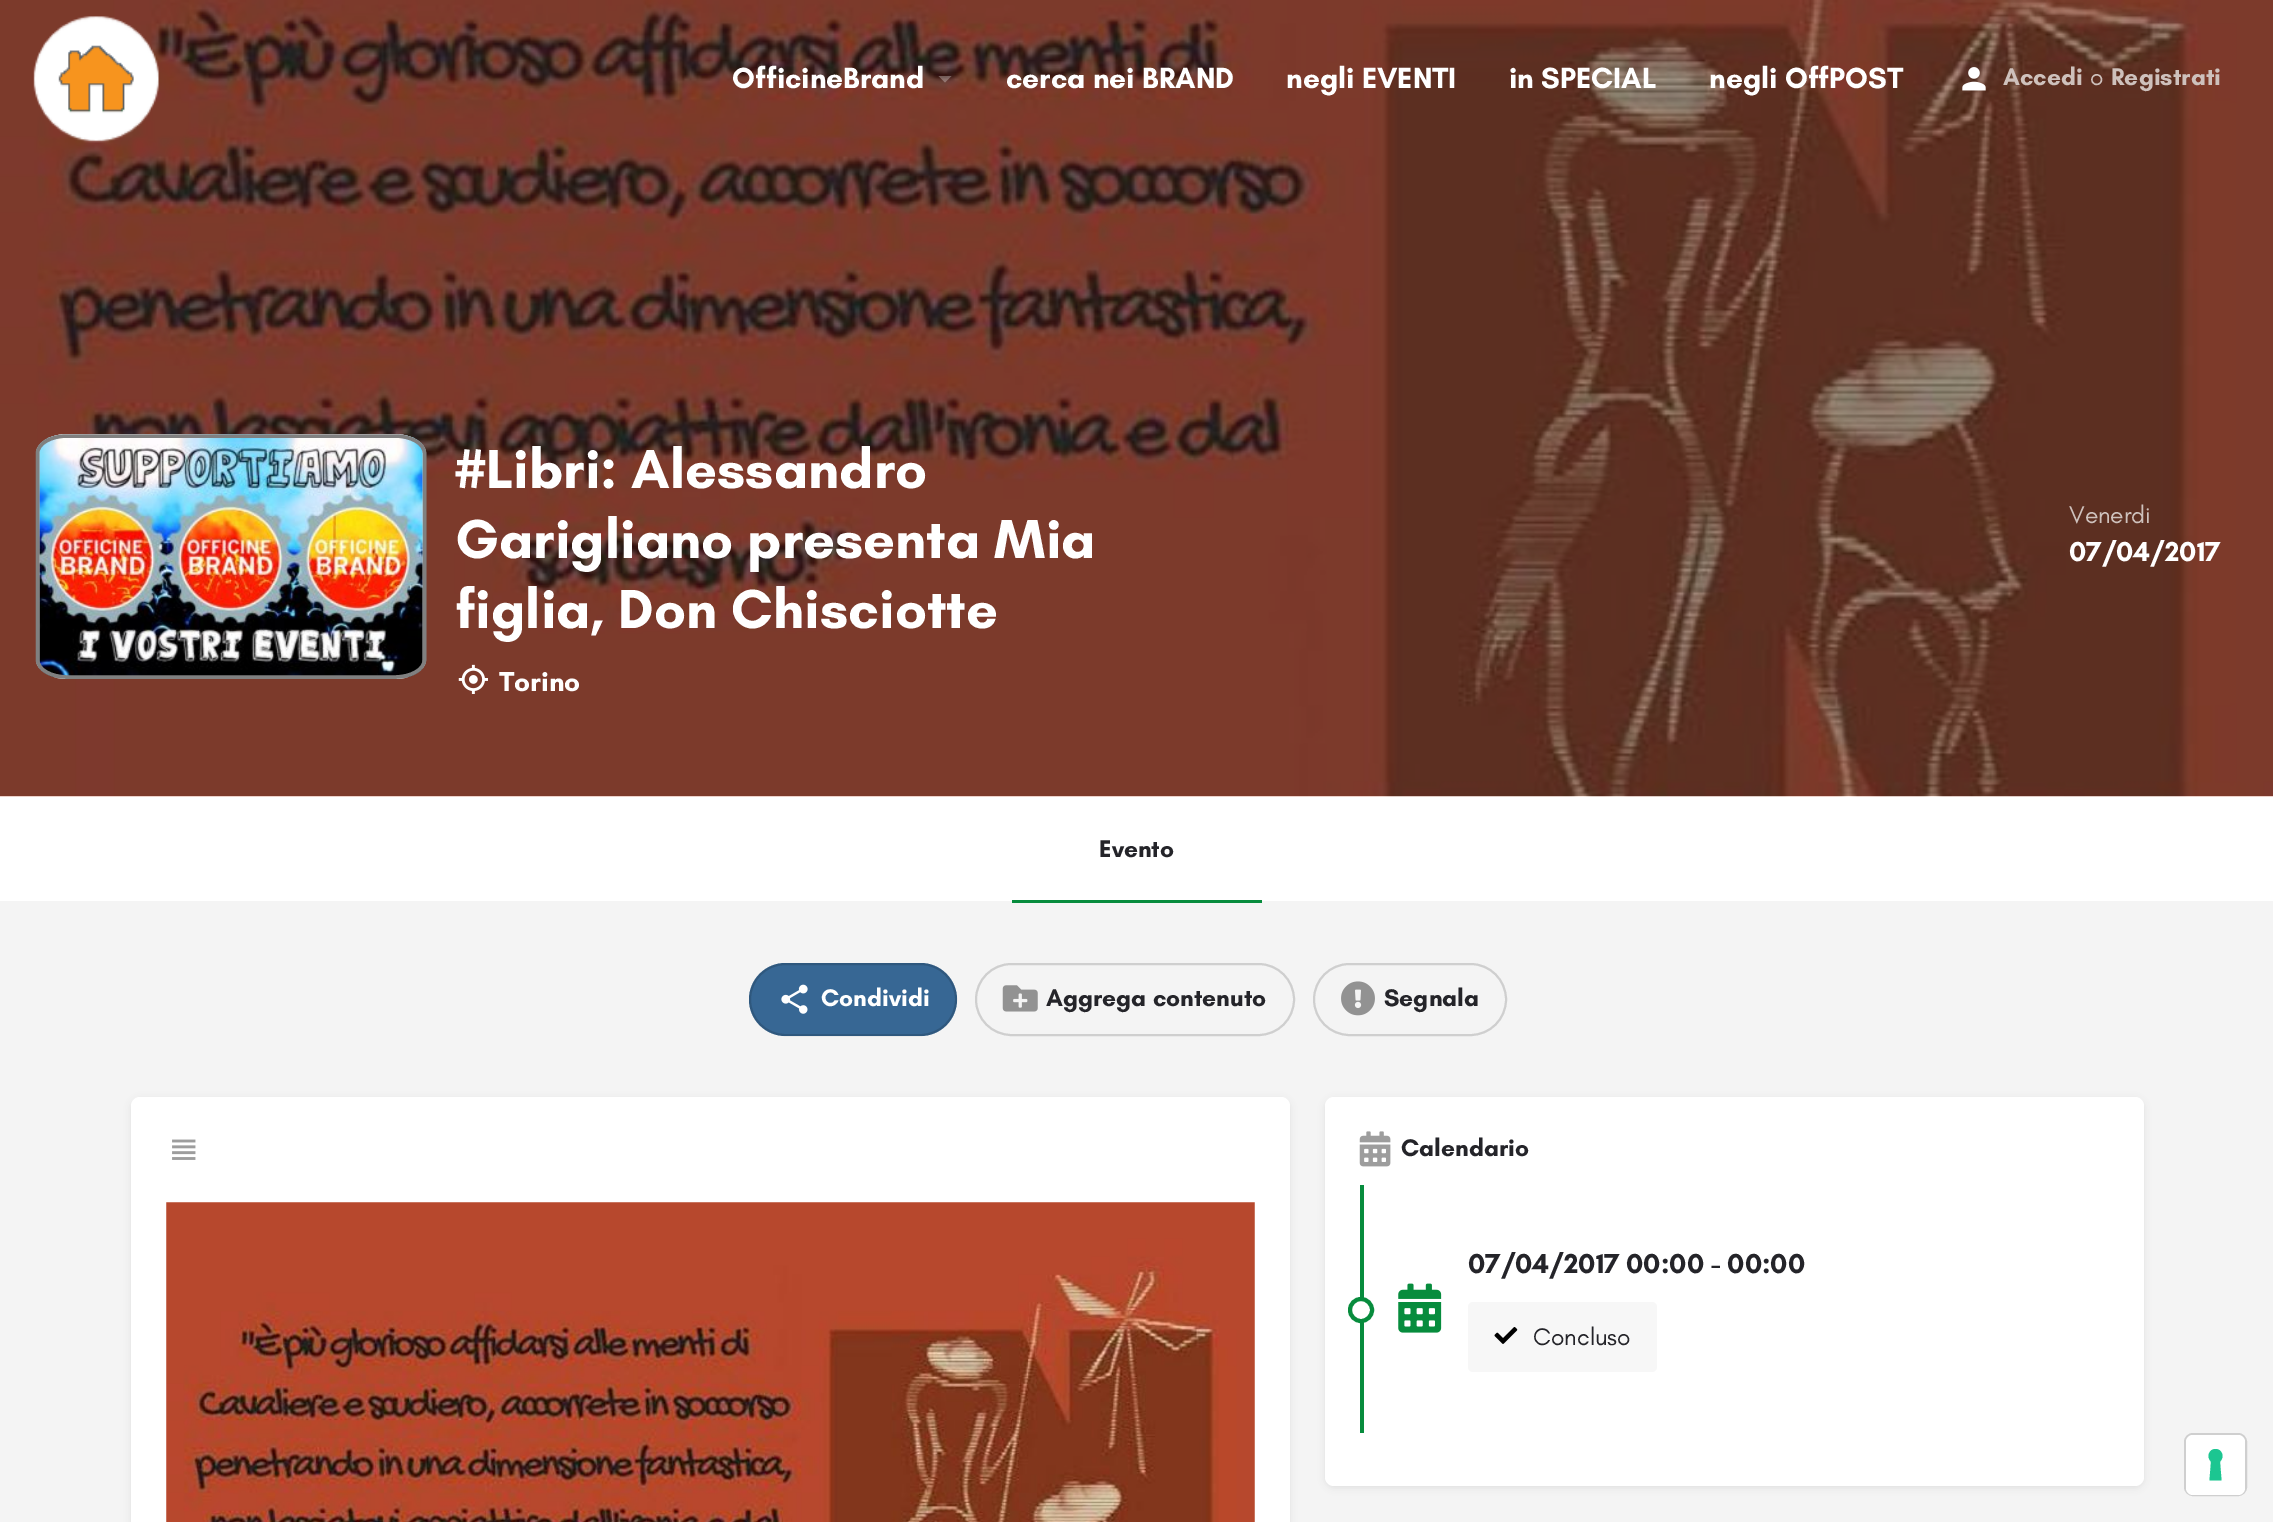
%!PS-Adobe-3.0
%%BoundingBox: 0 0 2273 1522
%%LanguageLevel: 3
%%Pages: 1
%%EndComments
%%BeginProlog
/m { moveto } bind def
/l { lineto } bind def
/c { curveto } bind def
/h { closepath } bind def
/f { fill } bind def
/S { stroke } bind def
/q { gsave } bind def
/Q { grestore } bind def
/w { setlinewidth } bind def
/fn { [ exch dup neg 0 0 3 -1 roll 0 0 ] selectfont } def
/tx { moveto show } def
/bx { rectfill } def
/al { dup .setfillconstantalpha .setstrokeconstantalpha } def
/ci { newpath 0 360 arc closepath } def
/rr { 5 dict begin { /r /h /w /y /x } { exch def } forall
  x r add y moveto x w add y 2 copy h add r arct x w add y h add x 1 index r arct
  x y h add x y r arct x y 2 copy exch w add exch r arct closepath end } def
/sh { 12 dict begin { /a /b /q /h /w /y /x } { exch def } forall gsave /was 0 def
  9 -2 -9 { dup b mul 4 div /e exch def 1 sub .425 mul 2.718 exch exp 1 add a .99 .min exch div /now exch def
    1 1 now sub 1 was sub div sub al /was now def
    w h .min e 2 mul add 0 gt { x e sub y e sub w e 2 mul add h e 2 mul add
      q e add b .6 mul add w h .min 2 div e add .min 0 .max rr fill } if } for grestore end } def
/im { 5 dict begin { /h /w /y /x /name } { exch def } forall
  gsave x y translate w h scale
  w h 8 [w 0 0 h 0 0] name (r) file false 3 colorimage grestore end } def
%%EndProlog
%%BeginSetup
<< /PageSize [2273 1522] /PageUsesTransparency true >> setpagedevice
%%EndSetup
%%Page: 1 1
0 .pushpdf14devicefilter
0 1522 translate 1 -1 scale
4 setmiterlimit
0.957 setgray
0 0 2273 1522 bx
1 setgray
0 796 2273 105 bx
(image2.raw) 0 0 2273 797 im
(image0.raw) 33 16 126 127 im
/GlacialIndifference-Bold 29.75 fn
(OfficineBrand) 732 88 tx
0.3 al
938.5 76 m 951.5 76 l 945 82.5 l h f
1 al
(cerca nei BRAND) 1006 88 tx
(negli EVENTI) 1286 88 tx
(in SPECIAL) 1509 88 tx
(negli OffPOST) 1709 88 tx
(image1.raw) 1962 67 24 24 im
/GlacialIndifference-Bold 24.5 fn
0.808 0.757 0.737 setrgbcolor
(Accedi) 2003 85 tx
/GlacialIndifference-Regular 24.5 fn
(o) 2090 85 tx
/GlacialIndifference-Bold 24.5 fn
(Registrati) 2111 85 tx
0.867 0.898 0.902 setrgbcolor
67 434 m 395 434 l 412 434 426 443 426 454 c 426 659 l 426 670 412 679 395 679 c 67 679 l 50 679 36 670 36 659 c 36 454 l 36 443 50 434 67 434 c h f
(image3.raw) 39 434 384 244 im
0.502 setgray
3.5 w
67 436 m 395 436 l 411 436 424.5 443.5 424.5 453.5 c 424.5 659.5 l 424.5 669.5 411 677 395 677 c 67 677 l 51 677 37.5 669.5 37.5 659.5 c 37.5 453.5 l 37.5 443.5 51 436 67 436 c h S
/GlacialIndifference-Bold 56 fn
1 setgray
(#Libri: Alessandro) 455 488 tx
(Garigliano presenta Mia) 455 558 tx
(figlia, Don Chisciotte) 455 628 tx
(image4.raw) 458 664 30 30 im
/GlacialIndifference-Bold 28 fn
(Torino) 499 691 tx
/GlacialIndifference-Regular 24.5 fn
0.808 0.757 0.737 setrgbcolor
(Venerdi) 2069 523 tx
/GlacialIndifference-Bold 28 fn
1 setgray
(07/04/2017) 2069 561 tx
/GlacialIndifference-Bold 24.5 fn
0.141 0.141 0.161 setrgbcolor
(Evento) 1099 857 tx
0.027 0.549 0.239 setrgbcolor
1012 900 250 3 bx
0.216 0.404 0.58 setrgbcolor
749 963 208 73 36.5 rr f
0.15 al
0 setgray
2 w
750 964 206 71 35.5 rr S
1 al
(image5.raw) 781 984 27 30 im
1 setgray
(Condividi) 821 1006 tx
0.812 setgray
976 964 318 71 35.5 rr S
(image6.raw) 1002 985 36 27 im
0.141 0.141 0.161 setrgbcolor
(Aggrega contenuto) 1046 1006 tx
0.812 setgray
1314 964 192 71 35.5 rr S
(image7.raw) 1341 981 34 35 im
0.141 0.141 0.161 setrgbcolor
(Segnala) 1384 1006 tx
0 setgray
131 1099 1159 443 9 3.5 0.07 sh
1 setgray
131 1097 1159 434 9 rr f
(image8.raw) 172 1139 24 21 im
(image9.raw) 166 1202 1089 320 im
0 setgray
1325 1099 819 389 9 3.5 0.07 sh
1 setgray
1325 1097 819 389 9 rr f
(image10.raw) 1359 1131 32 36 im
0.141 0.141 0.161 setrgbcolor
(Calendario) 1401 1156 tx
0.027 0.549 0.239 setrgbcolor
1360 1185 4 248 bx
/GlacialIndifference-Bold 28 fn
0.141 0.141 0.161 setrgbcolor
(07/04/2017 00:00 - 00:00) 1468 1273 tx
1 setgray
1361 1310 11 ci q f Q
0.027 0.549 0.239 setrgbcolor
4 w
S
(image11.raw) 1398 1283 44 50 im
0.969 setgray
1468 1302 189 70 5 rr f
(image12.raw) 1494 1327 24 17 im
/GlacialIndifference-Regular 24.5 fn
0.141 0.141 0.161 setrgbcolor
(Concluso) 1533 1345 tx
0.812 setgray
2 w
2185 1434 61 61 8 rr S
1 setgray
2186 1435 59 60 7 rr f
0.11 0.776 0.569 setrgbcolor
2215.5 1449 m 2222 1449 2225 1457 2220 1461.5 c 2221.5 1480.5 l 2209.5 1480.5 l 2211 1461.5 l 2206 1457 2209 1449 2215.5 1449 c h eofill
.poppdf14devicefilter showpage
%%EOF
